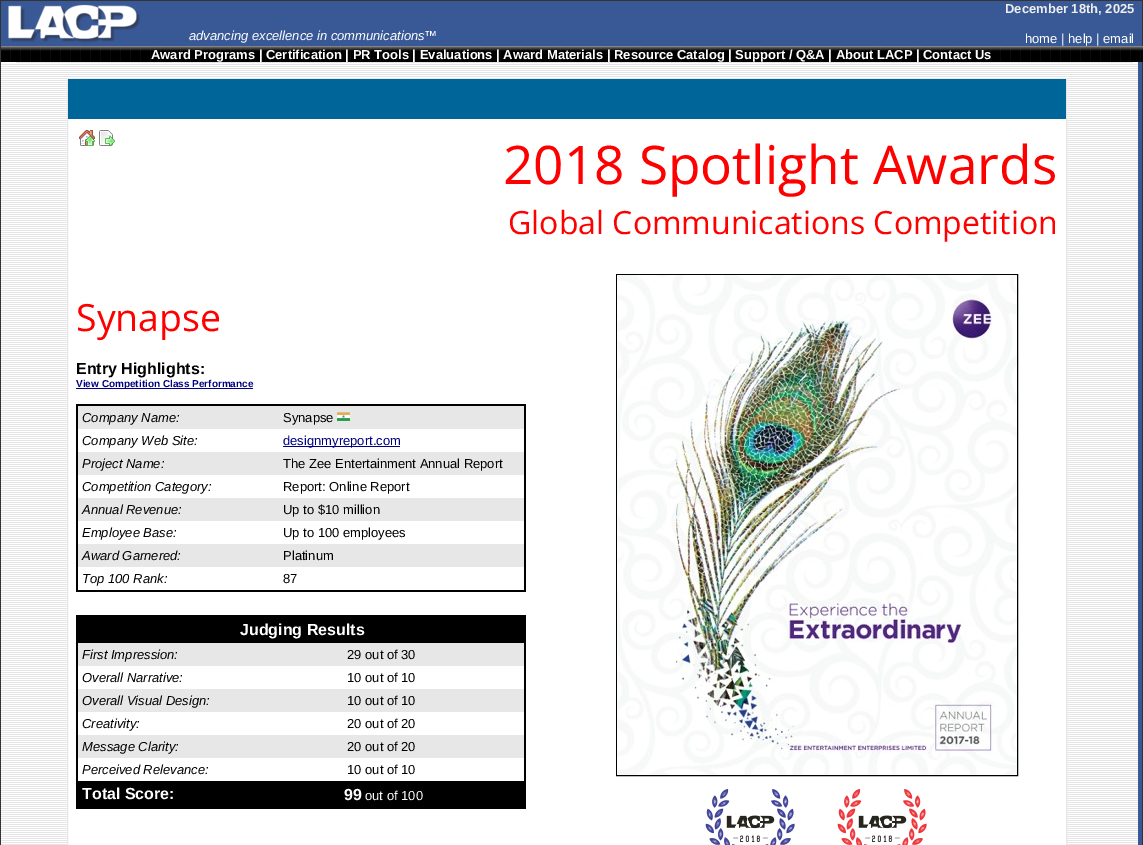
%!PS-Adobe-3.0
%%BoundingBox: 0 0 1143 845
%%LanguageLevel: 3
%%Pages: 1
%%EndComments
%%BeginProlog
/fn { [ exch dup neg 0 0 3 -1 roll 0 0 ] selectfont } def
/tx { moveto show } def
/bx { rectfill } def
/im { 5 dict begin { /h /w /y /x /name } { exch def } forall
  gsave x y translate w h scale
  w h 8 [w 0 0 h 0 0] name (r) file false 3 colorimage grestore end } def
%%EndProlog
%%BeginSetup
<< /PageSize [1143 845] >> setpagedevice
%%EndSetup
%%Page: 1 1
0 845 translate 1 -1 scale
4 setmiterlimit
1 setgray
0 0 1143 845 bx
(image0.raw) 1 62 1137 783 im
0.2 setgray
0 0 1143 1 bx
0 1 1 844 bx
0.224 0.349 0.588 setrgbcolor
1 1 1141 45 bx
(image1.raw) 8 4 132 39 im
/LiberationSans-Italic 13 fn
1 setgray
(advancing excellence in communications™) 189 40 tx
/LiberationSans-Bold 13 fn
0.933 setgray
(December 18th, 2025) 1005 13 tx
/LiberationSans-Regular 13 fn
1 setgray
(home | help | email) 1025 43 tx
0.2 setgray
1142 1 1 844 bx
(image2.raw) 1 46 1142 16 im
/LiberationSans-Bold 13 fn
1 setgray
(Award Programs | Certification | PR Tools | Evaluations | Award Materials | Resource Catalog | Support / Q&A | About LACP | Contact Us) 151 59 tx
1 62 15 1 bx
1133 62 5 1 bx
0.224 0.349 0.588 setrgbcolor
1138 62 4 783 bx
1 setgray
68 120 998 725 bx
0.906 setgray
67.5 78.5 999 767 rectstroke
0 0.4 0.6 setrgbcolor
68 79 998 40 bx
(image3.raw) 79 130 16 16 im
(image4.raw) 99 130 16 16 im
/OpenSans-Regular 53.25 fn
1 0 0 setrgbcolor
(2018 Spotlight Awards) 503 184 tx
/OpenSans-Regular 32 fn
(Global Communications Competition) 508 234 tx
/OpenSans-Regular 37.5 fn
(Synapse) 76 331 tx
/LiberationSans-Bold 16 fn
0 setgray
(Entry Highlights:) 76 374 tx
0 0 0.502 setrgbcolor
76 388 177 1 bx
/LiberationSans-Bold 10 fn
(View Competition Class Performance) 76 387 tx
0.906 setgray
78 406 446 23 bx
0 setgray
76 404 450 2 bx
76 404 2 163 bx
/LiberationSans-Italic 13 fn
(Company Name:) 82 422 tx
524 404 2 188 bx
/LiberationSans-Regular 13 fn
(Synapse) 283 422 tx
(image5.raw) 337 412 13 9 im
/LiberationSans-Italic 13 fn
(Company Web Site:) 82 445 tx
0 0 0.502 setrgbcolor
283 446 117 1 bx
/LiberationSans-Regular 13 fn
(designmyreport.com) 283 445 tx
0.906 setgray
78 452 446 23 bx
/LiberationSans-Italic 13 fn
0 setgray
(Project Name:) 82 468 tx
/LiberationSans-Regular 13 fn
(The Zee Entertainment Annual Report) 283 468 tx
/LiberationSans-Italic 13 fn
(Competition Category:) 82 491 tx
/LiberationSans-Regular 13 fn
(Report: Online Report) 283 491 tx
0.906 setgray
78 498 446 23 bx
/LiberationSans-Italic 13 fn
0 setgray
(Annual Revenue:) 82 514 tx
/LiberationSans-Regular 13 fn
(Up to $10 million) 283 514 tx
/LiberationSans-Italic 13 fn
(Employee Base:) 82 537 tx
/LiberationSans-Regular 13 fn
(Up to 100 employees) 283 537 tx
0.906 setgray
78 544 446 23 bx
/LiberationSans-Italic 13 fn
0 setgray
(Award Garnered:) 82 560 tx
/LiberationSans-Regular 13 fn
(Platinum) 283 560 tx
76 590 450 2 bx
76 567 2 25 bx
/LiberationSans-Italic 13 fn
(Top 100 Rank:) 82 583 tx
/LiberationSans-Regular 13 fn
(87) 283 583 tx
76 615 450 28 bx
/LiberationSans-Bold 16 fn
1 setgray
(Judging Results) 240 635 tx
0.906 setgray
78 643 446 23 bx
0 setgray
76 643 2 138 bx
/LiberationSans-Italic 13 fn
(First Impression:) 82 659 tx
524 643 2 138 bx
/LiberationSans-Regular 13 fn
(29 out of 30) 347 659 tx
/LiberationSans-Italic 13 fn
(Overall Narrative:) 82 682 tx
/LiberationSans-Regular 13 fn
(10 out of 10) 347 682 tx
0.906 setgray
78 689 446 23 bx
/LiberationSans-Italic 13 fn
0 setgray
(Overall Visual Design:) 82 705 tx
/LiberationSans-Regular 13 fn
(10 out of 10) 347 705 tx
/LiberationSans-Italic 13 fn
(Creativity:) 82 728 tx
/LiberationSans-Regular 13 fn
(20 out of 20) 347 728 tx
0.906 setgray
78 735 446 23 bx
/LiberationSans-Italic 13 fn
0 setgray
(Message Clarity:) 82 751 tx
/LiberationSans-Regular 13 fn
(20 out of 20) 347 751 tx
/LiberationSans-Italic 13 fn
(Perceived Relevance:) 82 774 tx
/LiberationSans-Regular 13 fn
(10 out of 10) 347 774 tx
76 781 450 28 bx
/LiberationSans-Bold 16 fn
1 setgray
(Total Score:) 82 799 tx
(99) 344 800 tx
/LiberationSans-Regular 13 fn
(out of 100) 365 800 tx
0 setgray
616.5 274.5 401 501 rectstroke
(image6.raw) 617 275 400 500 im
(image7.raw) 705 789 90 56 im
(image8.raw) 837 789 90 56 im
showpage
%%EOF
